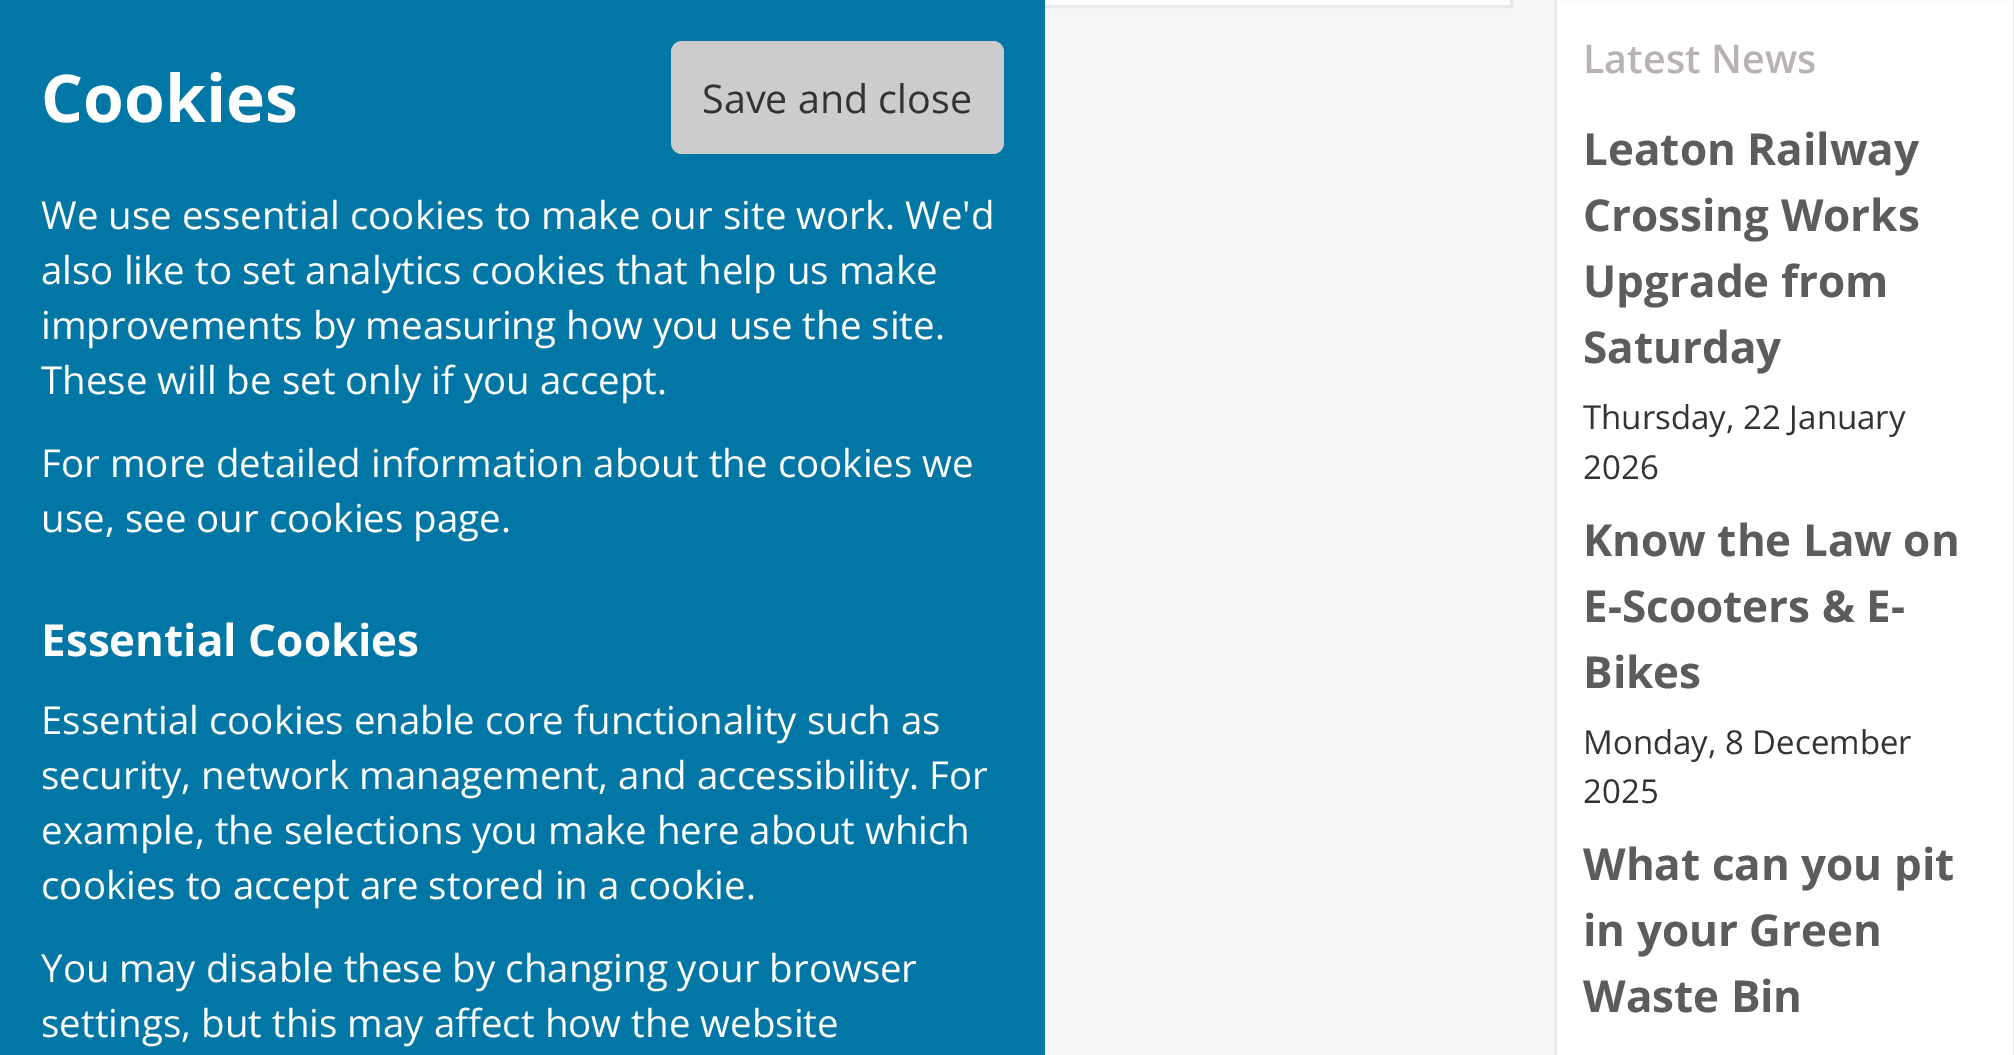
%!PS-Adobe-3.0
%%BoundingBox: 0 0 2014 1055
%%LanguageLevel: 3
%%Pages: 1
%%EndComments
%%BeginProlog
/m { moveto } bind def
/l { lineto } bind def
/h { closepath } bind def
/f { fill } bind def
/S { stroke } bind def
/q { gsave } bind def
/Q { grestore } bind def
/w { setlinewidth } bind def
/fn { [ exch dup neg 0 0 3 -1 roll 0 0 ] selectfont } def
/tx { moveto show } def
/bx { rectfill } def
/rr { 5 dict begin { /r /h /w /y /x } { exch def } forall
  x r add y moveto x w add y 2 copy h add r arct x w add y h add x 1 index r arct
  x y h add x y r arct x y 2 copy exch w add exch r arct closepath end } def
%%EndProlog
%%BeginSetup
<< /PageSize [2014 1055] >> setpagedevice
%%EndSetup
%%Page: 1 1
0 1055 translate 1 -1 scale
4 setmiterlimit
0.965 setgray
0 0 2014 1055 bx
1 setgray
1045 0 468 5 bx
0.918 setgray
3 w
1.5 -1.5 1510 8 rectstroke
0.008 0.463 0.647 setrgbcolor
0 0 1045 1055 bx
/OpenSans-Bold 66 fn
1 setgray
(Cookies) 41 122 tx
0.8 setgray
671 41 333 113 11 rr f
/OpenSans-Regular 39.5 fn
0.2 setgray
(Save and close) 702 113 tx
/OpenSans-Regular 38.5 fn
1 setgray
(We use essential cookies to make our site work. We'd) 41 229 tx
(also like to set analytics cookies that help us make) 41 284 tx
(improvements by measuring how you use the site.) 41 339 tx
(These will be set only if you accept.) 41 394 tx
(For more detailed information about the cookies we) 41 477 tx
(use, see our cookies page.) 41 532 tx
/OpenSans-Bold 44 fn
(Essential Cookies) 41 656 tx
/OpenSans-Regular 38.5 fn
(Essential cookies enable core functionality such as) 41 734 tx
(security, network management, and accessibility. For) 41 789 tx
(example, the selections you make here about which) 41 844 tx
(cookies to accept are stored in a cookie.) 41 899 tx
(You may disable these by changing your browser) 41 982 tx
(settings, but this may affect how the website) 41 1037 tx
1555.5 -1.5 m 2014.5 -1.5 l 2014.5 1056.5 l 1555.5 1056.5 l h q f Q
0.918 setgray
S
/OpenSans-SemiBold 39.5 fn
0.725 0.698 0.698 setrgbcolor
(Latest News) 1583 73 tx
/OpenSans-Bold 44 fn
0.361 setgray
(Leaton Railway) 1583 165 tx
(Crossing Works) 1583 231 tx
(Upgrade from) 1583 297 tx
(Saturday) 1583 363 tx
/OpenSans-Regular 33 fn
0.2 setgray
(Thursday, 22 January) 1583 429 tx
(2026) 1583 479 tx
/OpenSans-Bold 44 fn
0.361 setgray
(Know the Law on) 1583 556 tx
(E-Scooters & E-) 1583 622 tx
(Bikes) 1583 688 tx
/OpenSans-Regular 33 fn
0.2 setgray
(Monday, 8 December) 1583 754 tx
(2025) 1583 803 tx
/OpenSans-Bold 44 fn
0.361 setgray
(What can you pit) 1583 880 tx
(in your Green) 1583 946 tx
(Waste Bin) 1583 1012 tx
showpage
%%EOF
